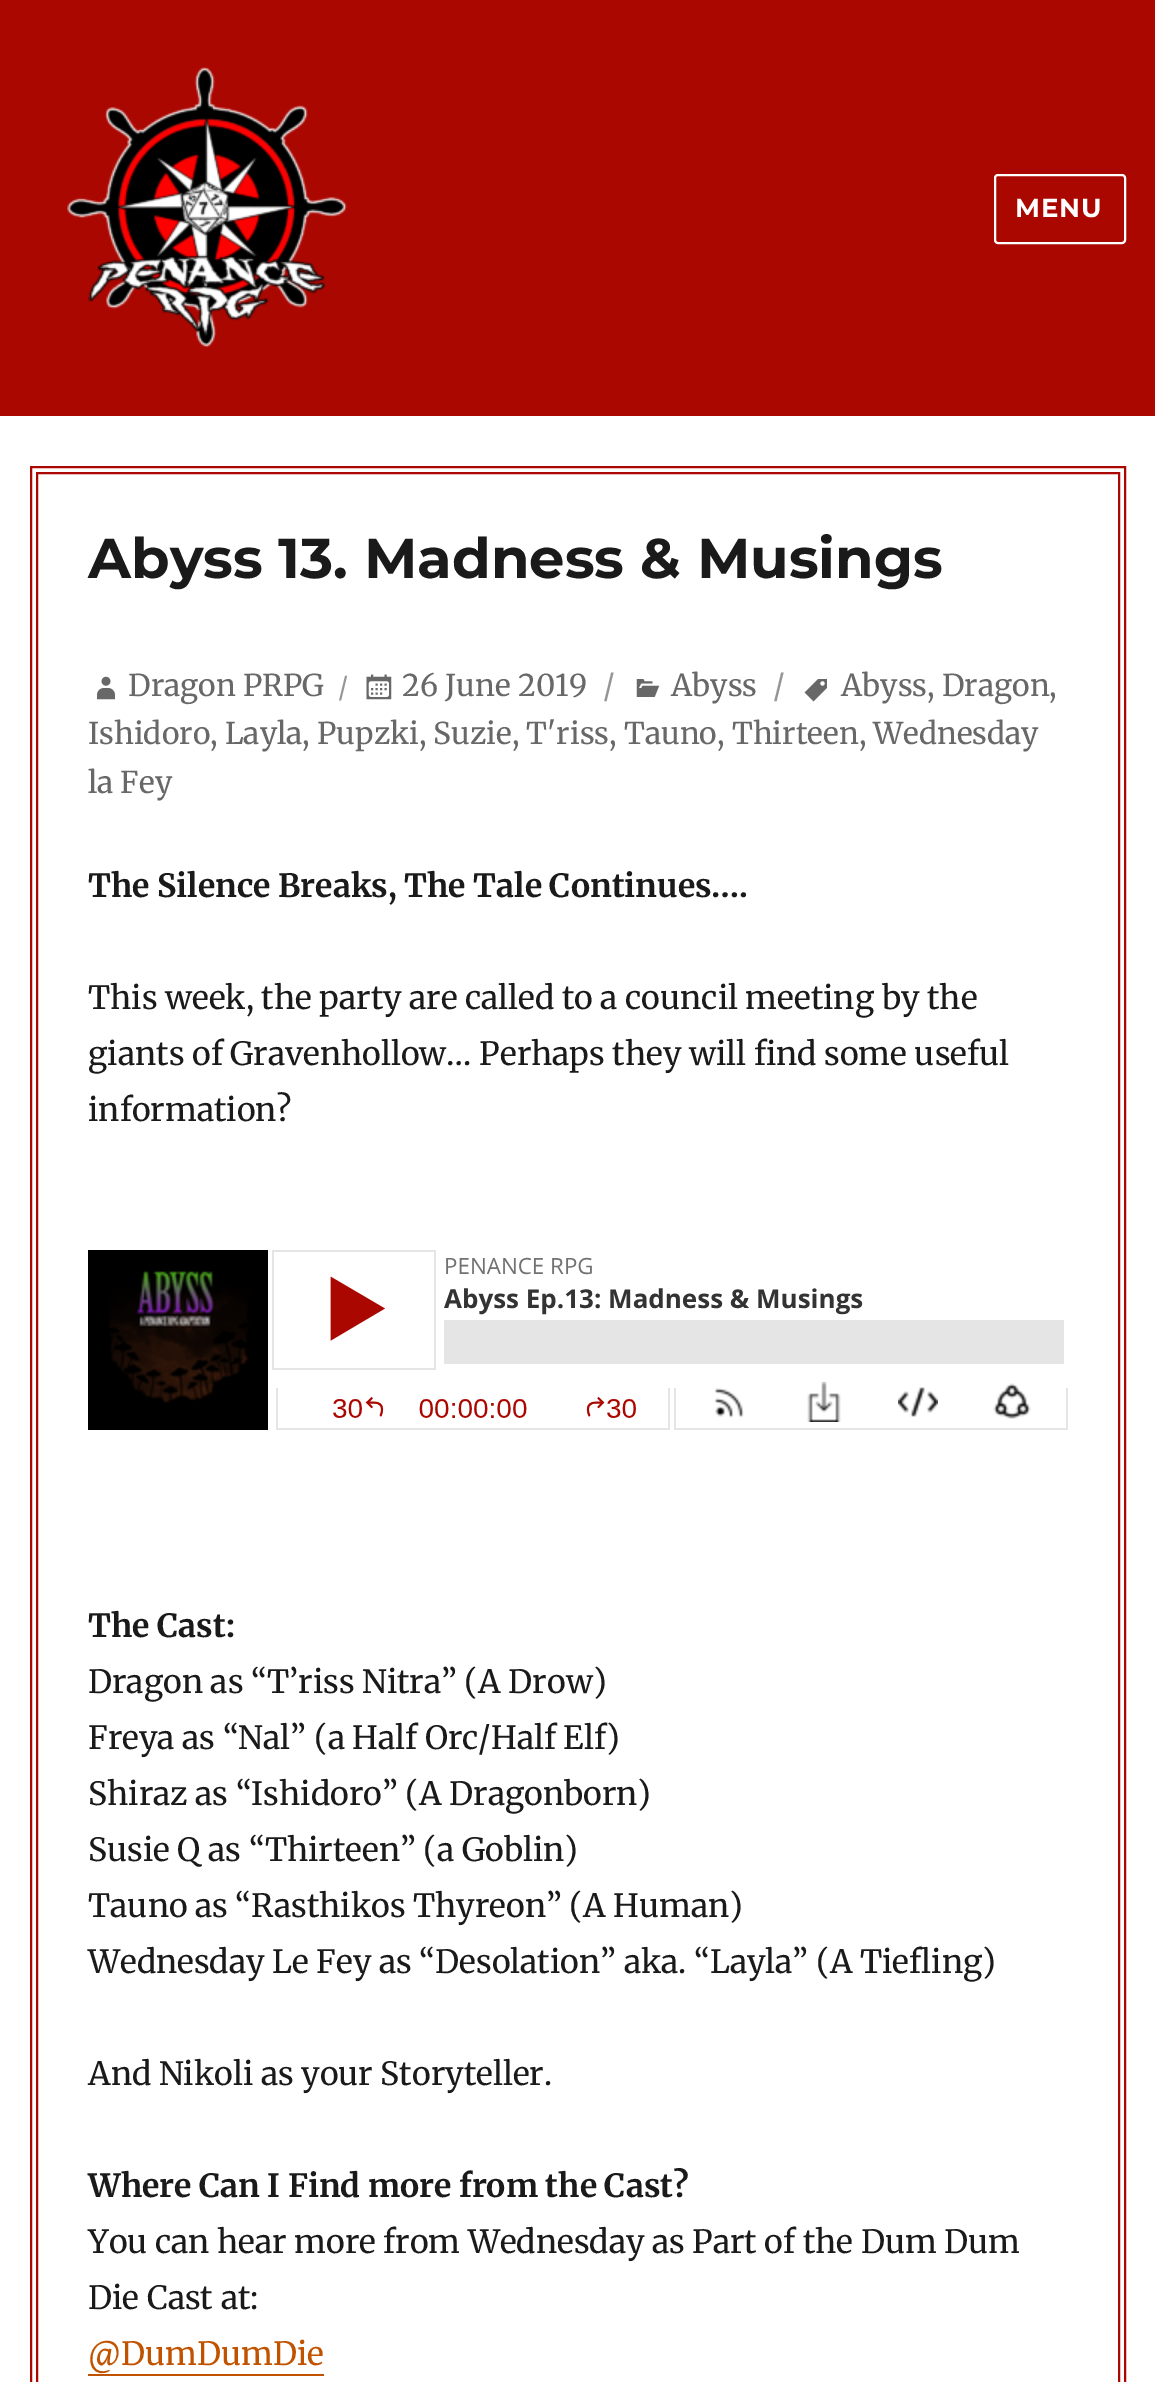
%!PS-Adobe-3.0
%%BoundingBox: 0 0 1155 2382
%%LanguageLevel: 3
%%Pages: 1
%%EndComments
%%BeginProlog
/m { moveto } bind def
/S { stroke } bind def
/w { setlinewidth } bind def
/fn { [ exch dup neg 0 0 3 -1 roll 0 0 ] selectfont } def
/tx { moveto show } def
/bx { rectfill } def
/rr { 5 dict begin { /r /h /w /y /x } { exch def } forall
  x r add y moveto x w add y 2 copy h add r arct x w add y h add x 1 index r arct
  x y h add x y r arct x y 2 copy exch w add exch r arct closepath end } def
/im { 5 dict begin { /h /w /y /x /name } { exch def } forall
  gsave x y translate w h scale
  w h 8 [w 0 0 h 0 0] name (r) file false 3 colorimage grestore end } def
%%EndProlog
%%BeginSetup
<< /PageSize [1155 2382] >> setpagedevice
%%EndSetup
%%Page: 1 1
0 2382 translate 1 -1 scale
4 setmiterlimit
1 setgray
0 0 1155 2382 bx
0.667 0.027 0.004 setrgbcolor
0 0 1155 416 bx
(image0.raw) 67 67 280 281 im
1 setgray
2 w
995 175 130 68 3 rr S
/Montserrat-Bold 26 fn
1015 217 m 1 0 (MENU) ashow
0.667 0.027 0.004 setrgbcolor
31 467 1094 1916 rectstroke
37 473 1082 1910 rectstroke
/Montserrat-Bold 56 fn
0.102 setgray
(Abyss 13. Madness & Musings) 88 578 tx
(image1.raw) 97 676 18 24 im
/Merriweather-Regular 30 fn
0.408 setgray
(Dragon PRPG) 128 696 tx
/Merriweather-Regular 26 fn
0.584 setgray
(/) 338 696 tx
(image2.raw) 366 674 26 26 im
/Merriweather-Regular 30 fn
0.408 setgray
(26 June 2019) 402 696 tx
0.584 setgray
(/) 603 696 tx
(image3.raw) 636 679 24 18 im
0.408 setgray
(Abyss) 671 696 tx
0.584 setgray
(/) 773 696 tx
(image4.raw) 804 679 23 23 im
0.408 setgray
(Abyss, Dragon,) 841 696 tx
(Ishidoro, Layla, Pupzki, Suzie, T'riss, Tauno, Thirteen, Wednesday) 88 744 tx
(la Fey) 88 793 tx
/Merriweather-Bold 32 fn
0.102 setgray
(The Silence Breaks, The Tale Continues….) 88 897 tx
/Merriweather-Regular 32 fn
(This week, the party are called to a council meeting by the) 88 1009 tx
(giants of Gravenhollow… Perhaps they will find some useful) 88 1065 tx
(information?) 88 1121 tx
(image5.raw) 88 1250 980 180 im
/Merriweather-Bold 32 fn
(The Cast:) 88 1637 tx
/Merriweather-Regular 32 fn
(Dragon as “T’riss Nitra” \(A Drow\)) 88 1693 tx
(Freya as “Nal” \(a Half Orc/Half Elf\)) 88 1749 tx
(Shiraz as “Ishidoro” \(A Dragonborn\)) 88 1805 tx
(Susie Q as “Thirteen” \(a Goblin\)) 88 1861 tx
(Tauno as “Rasthikos Thyreon” \(A Human\)) 88 1917 tx
(Wednesday Le Fey as “Desolation” aka. “Layla” \(A Tiefling\)) 88 1973 tx
(And Nikoli as your Storyteller.) 88 2085 tx
/Merriweather-Bold 32 fn
(Where Can I Find more from the Cast?) 88 2197 tx
/Merriweather-Regular 32 fn
(You can hear more from Wednesday as Part of the Dum Dum) 88 2253 tx
(Die Cast at:) 88 2309 tx
0.757 0.325 0 setrgbcolor
(@DumDumDie) 88 2365 tx
88 2374 236 2 bx
showpage
%%EOF
